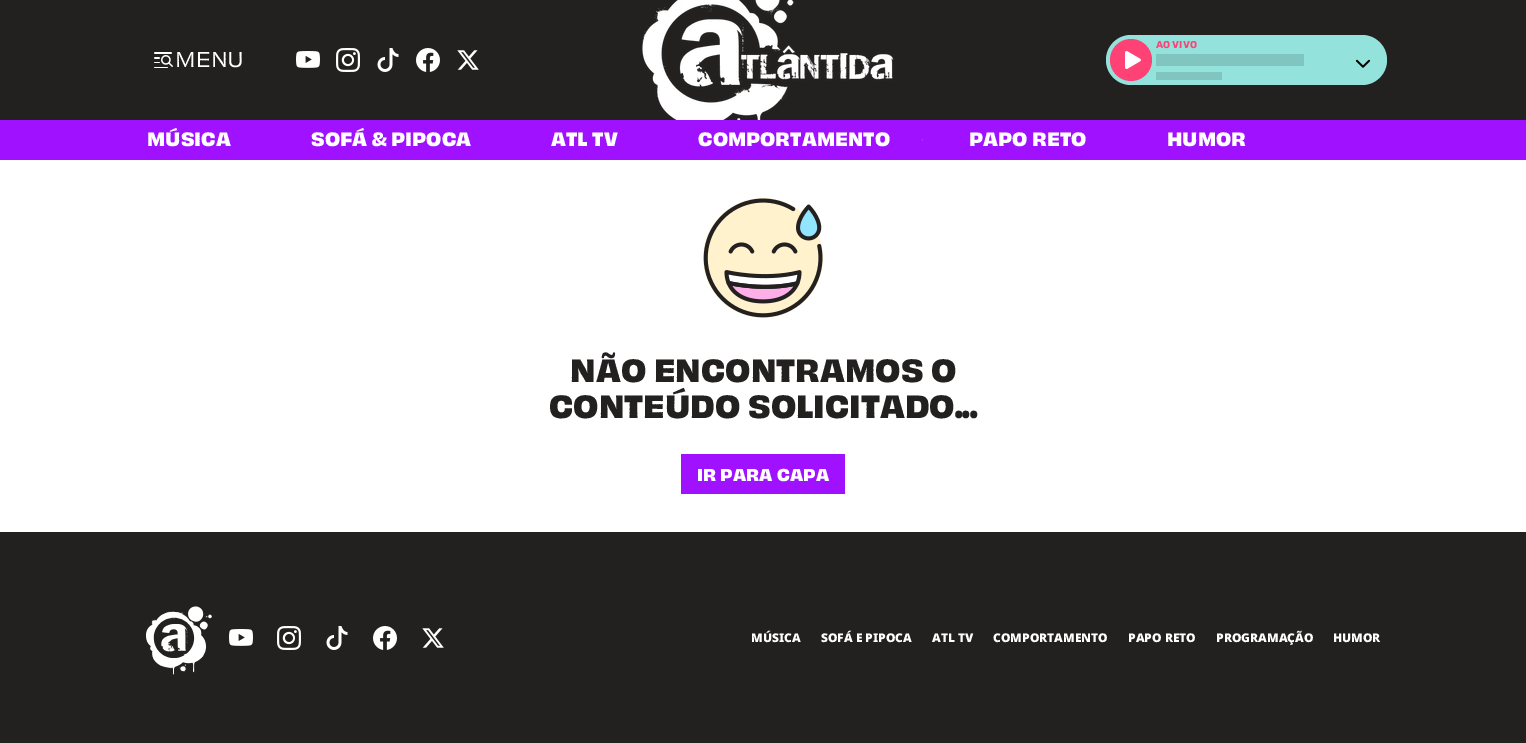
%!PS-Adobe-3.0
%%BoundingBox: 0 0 1526 743
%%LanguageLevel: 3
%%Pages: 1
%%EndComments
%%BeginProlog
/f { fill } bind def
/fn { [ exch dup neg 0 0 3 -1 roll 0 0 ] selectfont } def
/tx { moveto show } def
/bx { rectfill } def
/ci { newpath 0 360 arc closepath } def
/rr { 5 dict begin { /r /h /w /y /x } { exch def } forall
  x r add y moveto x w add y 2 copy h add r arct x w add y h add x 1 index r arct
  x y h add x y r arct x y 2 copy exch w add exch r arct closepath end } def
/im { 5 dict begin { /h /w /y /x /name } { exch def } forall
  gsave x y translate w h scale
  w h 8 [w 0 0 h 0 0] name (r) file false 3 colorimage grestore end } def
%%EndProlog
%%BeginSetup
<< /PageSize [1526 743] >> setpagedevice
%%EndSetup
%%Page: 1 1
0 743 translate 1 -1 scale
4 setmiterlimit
1 setgray
0 0 1526 743 bx
0.137 0.125 0.125 setrgbcolor
0 0 1526 120 bx
(image0.raw) 642 0 252 120 im
0.58 0.886 0.863 setrgbcolor
1106 35 281 50 25 rr f
1 0.259 0.459 setrgbcolor
1131 60 21 ci f
(image1.raw) 1125 51 16 18 im
/Rubik-Bold 10 fn
(AO VIVO) 1156 48 tx
0.506 0.773 0.753 setrgbcolor
1156 54 148 12 bx
1156 72 66 8 bx
(image2.raw) 1355 59 16 9 im
(image3.raw) 154 52 19 16 im
/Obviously-SemiBold 20 fn
1 setgray
(MENU) 175 67 tx
(image4.raw) 296 51 24 17 im
(image5.raw) 336 48 24 24 im
(image6.raw) 377 48 22 24 im
(image7.raw) 416 48 24 24 im
(image8.raw) 457 50 22 20 im
0.627 0.071 1 setrgbcolor
0 120 1526 40 bx
/Obviously-Bold 18 fn
1 setgray
(MÚSICA) 147 146 tx
0.624 0.118 1 setrgbcolor
263 139 1 1 bx
1 setgray
(SOFÁ & PIPOCA) 311 146 tx
0.624 0.118 1 setrgbcolor
503 139 1 1 bx
1 setgray
(ATL TV) 551 146 tx
0.624 0.118 1 setrgbcolor
650 139 1 1 bx
1 setgray
(COMPORTAMENTO) 698 146 tx
(image9.raw) 921 139 2 2 im
(PAPO RETO) 969 146 tx
0.624 0.118 1 setrgbcolor
1119 139 1 1 bx
1 setgray
(HUMOR) 1167 146 tx
(image10.raw) 703 198 120 120 im
/Obviously-Bold 30 fn
0.137 0.125 0.125 setrgbcolor
(NÃO ENCONTRAMOS O) 570 382 tx
(CONTEÚDO SOLICITADO...) 549 418 tx
0.627 0.071 1 setrgbcolor
681 454 164 40 bx
/Obviously-Bold 16 fn
1 setgray
(IR PARA CAPA) 697 481 tx
0.137 0.125 0.125 setrgbcolor
0 532 1526 211 bx
(image11.raw) 146 606 66 69 im
(image4.raw) 229 629 24 17 im
(image5.raw) 277 626 24 24 im
(image6.raw) 326 626 22 24 im
(image7.raw) 373 626 24 24 im
(image8.raw) 422 628 22 20 im
/NotoSans-Black 12 fn
1 setgray
(MÚSICA) 751 642 tx
(SOFÁ E PIPOCA) 821 642 tx
(ATL TV) 932 642 tx
(COMPORTAMENTO) 993 642 tx
(PAPO RETO) 1128 642 tx
(PROGRAMAÇÃO) 1216 642 tx
(HUMOR) 1333 642 tx
showpage
%%EOF
